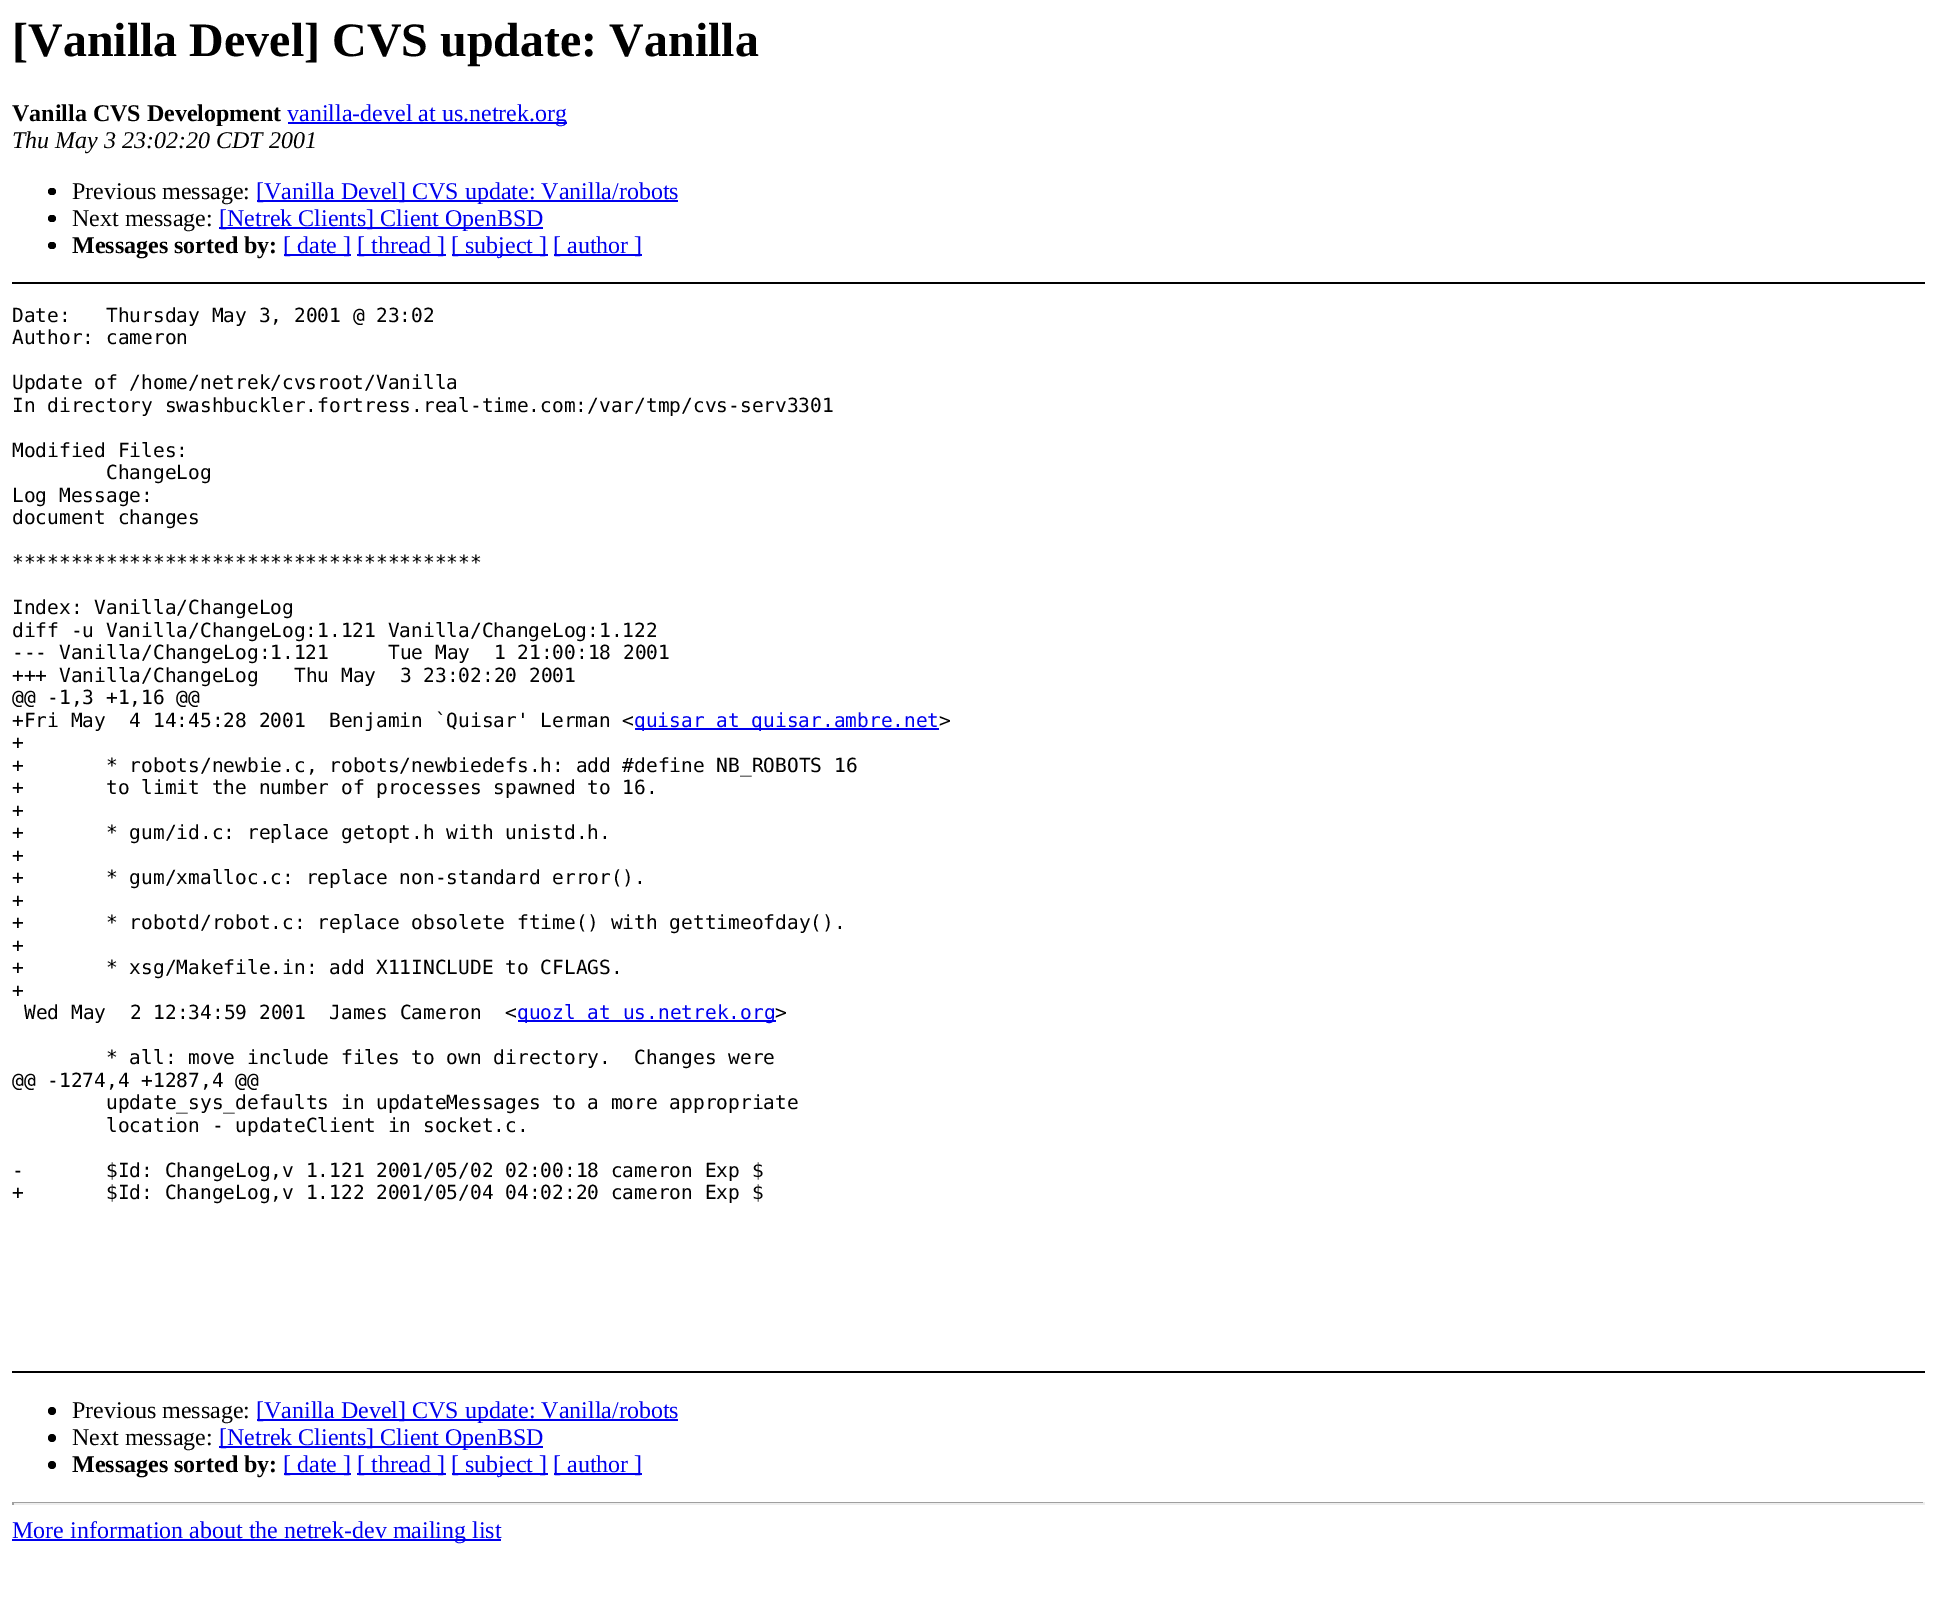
%!PS-Adobe-3.0
%%BoundingBox: 0 0 1936 1612
%%LanguageLevel: 3
%%Pages: 1
%%EndComments
%%BeginProlog
/f { fill } bind def
/fn { [ exch dup neg 0 0 3 -1 roll 0 0 ] selectfont } def
/tx { moveto show } def
/bx { rectfill } def
/ci { newpath 0 360 arc closepath } def
/rr { 5 dict begin { /r /h /w /y /x } { exch def } forall
  x r add y moveto x w add y 2 copy h add r arct x w add y h add x 1 index r arct
  x y h add x y r arct x y 2 copy exch w add exch r arct closepath end } def
%%EndProlog
%%BeginSetup
<< /PageSize [1936 1612] >> setpagedevice
%%EndSetup
%%Page: 1 1
0 1612 translate 1 -1 scale
4 setmiterlimit
1 setgray
0 0 1936 1612 bx
0 setgray
12 282 1913 2 bx
/LiberationSerif-Bold 48 fn
([Vanilla Devel] CVS update: Vanilla) 12 56 tx
/LiberationSerif-Bold 24 fn
(Vanilla CVS Development) 12 121 tx
0 0 0.933 setrgbcolor
288 122 279 2 bx
/LiberationSerif-Regular 24 fn
(vanilla-devel at us.netrek.org) 287 121 tx
/LiberationSerif-Italic 24 fn
0 setgray
(Thu May 3 23:02:20 CDT 2001) 12 148 tx
48 188 8 7 3.5 rr f
/LiberationSerif-Regular 24 fn
(Previous message:) 72 199 tx
0 0 0.933 setrgbcolor
257 200 421 2 bx
([Vanilla Devel] CVS update: Vanilla/robots) 256 199 tx
0 setgray
48 215 8 7 3.5 rr f
(Next message:) 72 226 tx
0 0 0.933 setrgbcolor
219 227 324 2 bx
([Netrek Clients] Client OpenBSD) 219 226 tx
0 setgray
48 242 8 7 3.5 rr f
/LiberationSerif-Bold 24 fn
(Messages sorted by:) 72 253 tx
0 0 0.933 setrgbcolor
284 254 67 2 bx
/LiberationSerif-Regular 24 fn
([ date ]) 283 253 tx
357 254 89 2 bx
([ thread ]) 357 253 tx
452 254 96 2 bx
([ subject ]) 451 253 tx
554 254 88 2 bx
([ author ]) 553 253 tx
/DejaVuSansMono-Regular 19.5 fn
0 setgray
(Date:) 12 322 tx
(Thursday May 3, 2001 @ 23:02) 106 322 tx
(Author: cameron) 12 344 tx
(Update of /home/netrek/cvsroot/Vanilla) 12 389 tx
(In directory swashbuckler.fortress.real-time.com:/var/tmp/cvs-serv3301) 12 412 tx
(Modified Files:) 12 457 tx
(ChangeLog) 106 479 tx
(Log Message:) 12 502 tx
(document changes) 12 524 tx
(****************************************) 12 569 tx
(Index: Vanilla/ChangeLog) 12 614 tx
(diff -u Vanilla/ChangeLog:1.121 Vanilla/ChangeLog:1.122) 12 637 tx
(--- Vanilla/ChangeLog:1.121) 12 659 tx
(Tue May  1 21:00:18 2001) 388 659 tx
(+++ Vanilla/ChangeLog) 12 682 tx
(Thu May  3 23:02:20 2001) 294 682 tx
(@@ -1,3 +1,16 @@) 12 704 tx
(+Fri May  4 14:45:28 2001  Benjamin `Quisar' Lerman <) 12 727 tx
0 0 0.933 setrgbcolor
635 728 304 2 bx
(quisar at quisar.ambre.net) 634 727 tx
0 setgray
(>) 939 727 tx
(+) 12 749 tx
(+) 12 772 tx
(* robots/newbie.c, robots/newbiedefs.h: add #define NB_ROBOTS 16) 106 772 tx
(+) 12 794 tx
(to limit the number of processes spawned to 16.) 106 794 tx
(+) 12 817 tx
(+) 12 839 tx
(* gum/id.c: replace getopt.h with unistd.h.) 106 839 tx
(+) 12 862 tx
(+) 12 884 tx
(* gum/xmalloc.c: replace non-standard error\(\).) 106 884 tx
(+) 12 907 tx
(+) 12 929 tx
(* robotd/robot.c: replace obsolete ftime\(\) with gettimeofday\(\).) 106 929 tx
(+) 12 952 tx
(+) 12 974 tx
(* xsg/Makefile.in: add X11INCLUDE to CFLAGS.) 106 974 tx
(+) 12 997 tx
(Wed May  2 12:34:59 2001  James Cameron  <) 24 1019 tx
0 0 0.933 setrgbcolor
518 1020 258 2 bx
(quozl at us.netrek.org) 517 1019 tx
0 setgray
(>) 775 1019 tx
(* all: move include files to own directory.  Changes were) 106 1064 tx
(@@ -1274,4 +1287,4 @@) 12 1087 tx
(update_sys_defaults in updateMessages to a more appropriate) 106 1109 tx
(location - updateClient in socket.c.) 106 1132 tx
(-) 12 1177 tx
($Id: ChangeLog,v 1.121 2001/05/02 02:00:18 cameron Exp $) 106 1177 tx
(+) 12 1199 tx
($Id: ChangeLog,v 1.122 2001/05/04 04:02:20 cameron Exp $) 106 1199 tx
12 1371 1913 2 bx
52 1411 4 ci f
/LiberationSerif-Regular 24 fn
(Previous message:) 72 1418 tx
0 0 0.933 setrgbcolor
257 1419 421 2 bx
([Vanilla Devel] CVS update: Vanilla/robots) 256 1418 tx
0 setgray
52 1438 4 ci f
(Next message:) 72 1445 tx
0 0 0.933 setrgbcolor
219 1446 324 2 bx
([Netrek Clients] Client OpenBSD) 219 1445 tx
0 setgray
52 1465 4 ci f
/LiberationSerif-Bold 24 fn
(Messages sorted by:) 72 1472 tx
0 0 0.933 setrgbcolor
284 1473 67 2 bx
/LiberationSerif-Regular 24 fn
([ date ]) 283 1472 tx
357 1473 89 2 bx
([ thread ]) 357 1472 tx
452 1473 96 2 bx
([ subject ]) 451 1472 tx
554 1473 88 2 bx
([ author ]) 553 1472 tx
0.624 setgray
12 1502 1913 1 bx
0.933 setgray
1923 1502 2 3 bx
12 1503 1913 2 bx
0.624 setgray
12 1502 2 3 bx
0 0 0.933 setrgbcolor
12 1539 489 2 bx
(More information about the netrek-dev mailing list) 12 1538 tx
showpage
%%EOF
